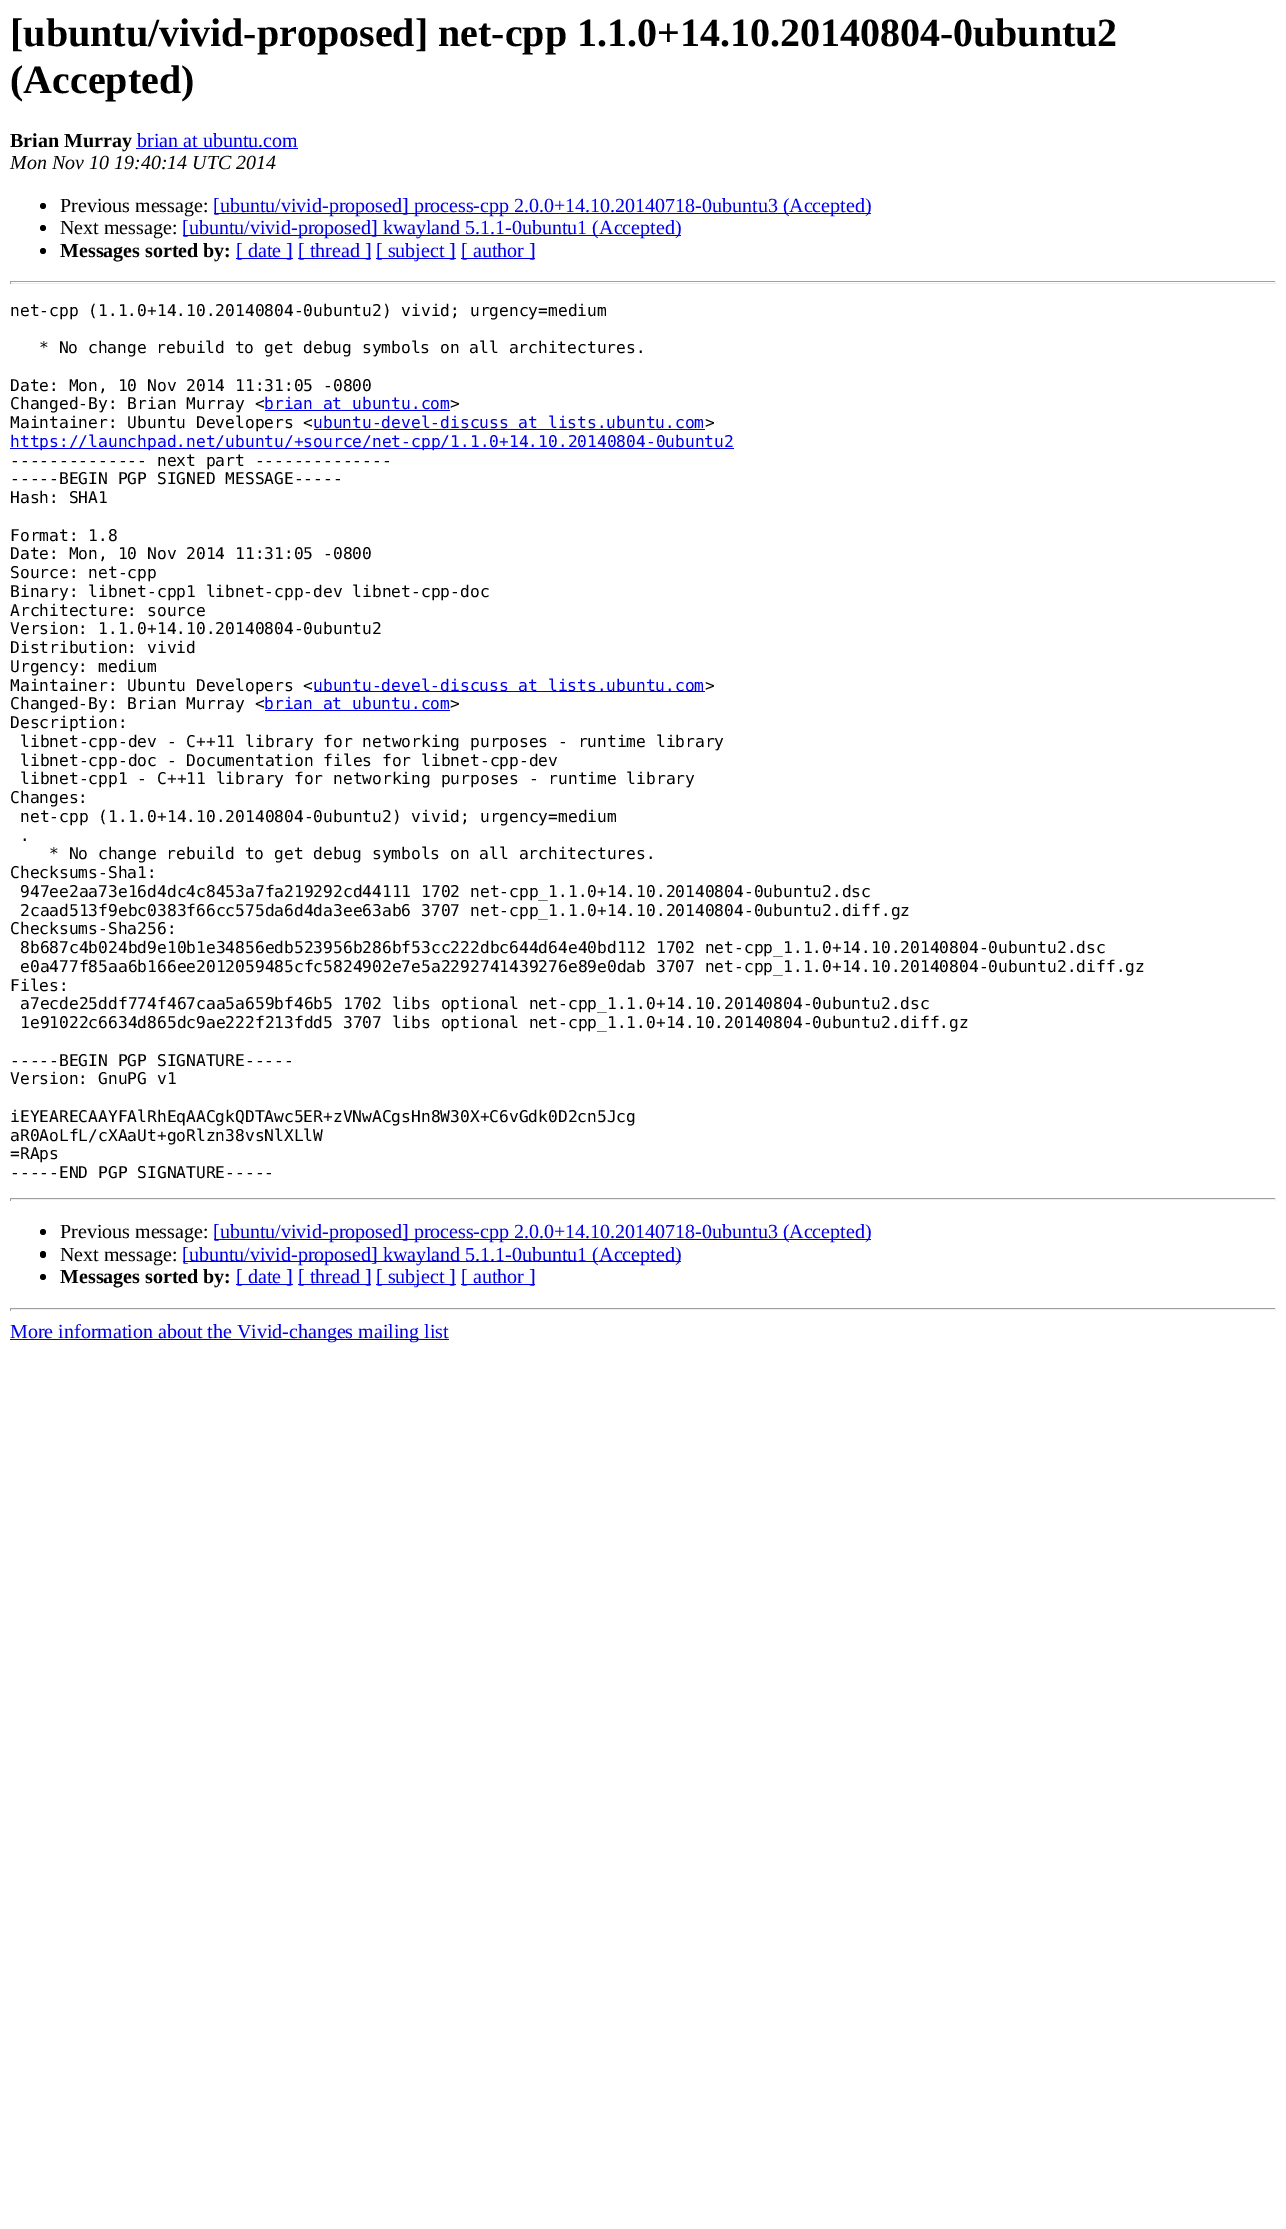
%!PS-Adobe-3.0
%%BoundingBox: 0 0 1286 2229
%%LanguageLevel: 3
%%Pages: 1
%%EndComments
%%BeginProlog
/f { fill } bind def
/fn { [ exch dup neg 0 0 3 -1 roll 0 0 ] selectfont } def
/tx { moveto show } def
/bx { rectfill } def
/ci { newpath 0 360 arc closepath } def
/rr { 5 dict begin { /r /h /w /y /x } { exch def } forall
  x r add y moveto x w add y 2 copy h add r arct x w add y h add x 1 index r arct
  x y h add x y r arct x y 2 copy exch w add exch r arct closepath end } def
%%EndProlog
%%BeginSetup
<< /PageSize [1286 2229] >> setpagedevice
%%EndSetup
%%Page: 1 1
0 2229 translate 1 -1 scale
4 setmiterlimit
1 setgray
0 0 1286 2229 bx
/LiberationSerif-Bold 40 fn
0 setgray
([ubuntu/vivid-proposed] net-cpp 1.1.0+14.10.20140804-0ubuntu2) 10 46 tx
(\(Accepted\)) 10 93 tx
/LiberationSerif-Bold 20 fn
(Brian Murray) 10 147 tx
/LiberationSerif-Regular 20 fn
0 0 0.933 setrgbcolor
(brian at ubuntu.com) 137 147 tx
136 148 162 1 bx
/LiberationSerif-Italic 20 fn
0 setgray
(Mon Nov 10 19:40:14 UTC 2014) 10 169 tx
43 206 3 ci f
/LiberationSerif-Regular 20 fn
(Previous message:) 60 212 tx
0 0 0.933 setrgbcolor
214 213 657 1 bx
([ubuntu/vivid-proposed] process-cpp 2.0.0+14.10.20140718-0ubuntu3 \(Accepted\)) 213 212 tx
0 setgray
43 228 3 ci f
(Next message:) 60 234 tx
0 0 0.933 setrgbcolor
183 235 498 1 bx
([ubuntu/vivid-proposed] kwayland 5.1.1-0ubuntu1 \(Accepted\)) 182 234 tx
0 setgray
43 251 3 ci f
/LiberationSerif-Bold 20 fn
(Messages sorted by:) 60 257 tx
0 0 0.933 setrgbcolor
236 258 57 1 bx
/LiberationSerif-Regular 20 fn
([ date ]) 236 257 tx
298 258 73 1 bx
([ thread ]) 298 257 tx
376 258 80 1 bx
([ subject ]) 376 257 tx
461 258 74 1 bx
([ author ]) 461 257 tx
0.624 setgray
10 281 1266 1 bx
0.933 setgray
1275 281 1 3 bx
10 283 1266 1 bx
0.624 setgray
10 281 1 3 bx
/DejaVuSansMono-Regular 16.25 fn
0 setgray
(net-cpp \(1.1.0+14.10.20140804-0ubuntu2\) vivid; urgency=medium) 10 316 tx
(* No change rebuild to get debug symbols on all architectures.) 39 353 tx
(Date: Mon, 10 Nov 2014 11:31:05 -0800) 10 391 tx
(Changed-By: Brian Murray <) 10 409 tx
0 0 0.933 setrgbcolor
(brian at ubuntu.com) 264 409 tx
265 410 185 1 bx
0 setgray
(>) 450 409 tx
(Maintainer: Ubuntu Developers <) 10 428 tx
0 0 0.933 setrgbcolor
(ubuntu-devel-discuss at lists.ubuntu.com) 313 428 tx
314 429 391 1 bx
0 setgray
(>) 705 428 tx
0 0 0.933 setrgbcolor
10 448 724 1 bx
(https://launchpad.net/ubuntu/+source/net-cpp/1.1.0+14.10.20140804-0ubuntu2) 10 447 tx
0 setgray
(-------------- next part --------------) 10 466 tx
(-----BEGIN PGP SIGNED MESSAGE-----) 10 484 tx
(Hash: SHA1) 10 503 tx
(Format: 1.8) 10 541 tx
(Date: Mon, 10 Nov 2014 11:31:05 -0800) 10 559 tx
(Source: net-cpp) 10 578 tx
(Binary: libnet-cpp1 libnet-cpp-dev libnet-cpp-doc) 10 597 tx
(Architecture: source) 10 616 tx
(Version: 1.1.0+14.10.20140804-0ubuntu2) 10 634 tx
(Distribution: vivid) 10 653 tx
(Urgency: medium) 10 672 tx
(Maintainer: Ubuntu Developers <) 10 691 tx
0 0 0.933 setrgbcolor
314 691 391 1 bx
(ubuntu-devel-discuss at lists.ubuntu.com) 313 691 tx
0 setgray
(>) 705 691 tx
(Changed-By: Brian Murray <) 10 709 tx
0 0 0.933 setrgbcolor
(brian at ubuntu.com) 264 709 tx
265 710 185 1 bx
0 setgray
(>) 450 709 tx
(Description:) 10 728 tx
(libnet-cpp-dev - C++11 library for networking purposes - runtime library) 20 747 tx
(libnet-cpp-doc - Documentation files for libnet-cpp-dev) 20 766 tx
(libnet-cpp1 - C++11 library for networking purposes - runtime library) 20 784 tx
(Changes:) 10 803 tx
(net-cpp \(1.1.0+14.10.20140804-0ubuntu2\) vivid; urgency=medium) 20 822 tx
(.) 20 841 tx
(* No change rebuild to get debug symbols on all architectures.) 49 859 tx
(Checksums-Sha1:) 10 878 tx
(947ee2aa73e16d4dc4c8453a7fa219292cd44111 1702 net-cpp_1.1.0+14.10.20140804-0ubuntu2.dsc) 20 897 tx
(2caad513f9ebc0383f66cc575da6d4da3ee63ab6 3707 net-cpp_1.1.0+14.10.20140804-0ubuntu2.diff.gz) 20 916 tx
(Checksums-Sha256:) 10 934 tx
(8b687c4b024bd9e10b1e34856edb523956b286bf53cc222dbc644d64e40bd112 1702 net-cpp_1.1.0+14.10.20140804-0ubuntu2.dsc) 20 953 tx
(e0a477f85aa6b166ee2012059485cfc5824902e7e5a2292741439276e89e0dab 3707 net-cpp_1.1.0+14.10.20140804-0ubuntu2.diff.gz) 20 972 tx
(Files:) 10 991 tx
(a7ecde25ddf774f467caa5a659bf46b5 1702 libs optional net-cpp_1.1.0+14.10.20140804-0ubuntu2.dsc) 20 1009 tx
(1e91022c6634d865dc9ae222f213fdd5 3707 libs optional net-cpp_1.1.0+14.10.20140804-0ubuntu2.diff.gz) 20 1028 tx
(-----BEGIN PGP SIGNATURE-----) 10 1066 tx
(Version: GnuPG v1) 10 1084 tx
(iEYEARECAAYFAlRhEqAACgkQDTAwc5ER+zVNwACgsHn8W30X+C6vGdk0D2cn5Jcg) 10 1122 tx
(aR0AoLfL/cXAaUt+goRlzn38vsNlXLlW) 10 1141 tx
(=RAps) 10 1159 tx
(-----END PGP SIGNATURE-----) 10 1178 tx
0.624 setgray
10 1198 1266 1 bx
0.933 setgray
1275 1198 1 3 bx
10 1199 1266 1 bx
0.624 setgray
10 1198 1 3 bx
0 setgray
43 1232 3 ci f
/LiberationSerif-Regular 20 fn
(Previous message:) 60 1238 tx
0 0 0.933 setrgbcolor
214 1239 657 1 bx
([ubuntu/vivid-proposed] process-cpp 2.0.0+14.10.20140718-0ubuntu3 \(Accepted\)) 213 1238 tx
0 setgray
40 1251 6 7 3 rr f
(Next message:) 60 1261 tx
0 0 0.933 setrgbcolor
183 1261 498 1 bx
([ubuntu/vivid-proposed] kwayland 5.1.1-0ubuntu1 \(Accepted\)) 182 1261 tx
0 setgray
43 1277 3 ci f
/LiberationSerif-Bold 20 fn
(Messages sorted by:) 60 1283 tx
0 0 0.933 setrgbcolor
236 1284 57 1 bx
/LiberationSerif-Regular 20 fn
([ date ]) 236 1283 tx
298 1284 73 1 bx
([ thread ]) 298 1283 tx
376 1284 80 1 bx
([ subject ]) 376 1283 tx
461 1284 74 1 bx
([ author ]) 461 1283 tx
0.624 setgray
10 1308 1266 1 bx
0.933 setgray
1275 1308 1 3 bx
10 1309 1266 1 bx
0.624 setgray
10 1308 1 3 bx
0 0 0.933 setrgbcolor
10 1339 439 1 bx
(More information about the Vivid-changes mailing list) 10 1338 tx
showpage
%%EOF
